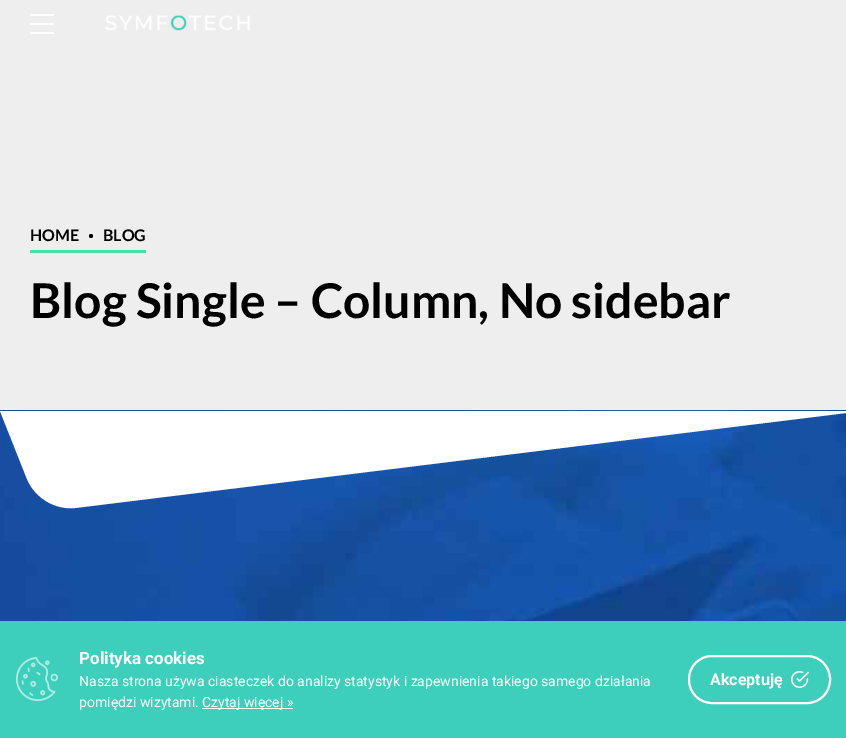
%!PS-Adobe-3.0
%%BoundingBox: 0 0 846 738
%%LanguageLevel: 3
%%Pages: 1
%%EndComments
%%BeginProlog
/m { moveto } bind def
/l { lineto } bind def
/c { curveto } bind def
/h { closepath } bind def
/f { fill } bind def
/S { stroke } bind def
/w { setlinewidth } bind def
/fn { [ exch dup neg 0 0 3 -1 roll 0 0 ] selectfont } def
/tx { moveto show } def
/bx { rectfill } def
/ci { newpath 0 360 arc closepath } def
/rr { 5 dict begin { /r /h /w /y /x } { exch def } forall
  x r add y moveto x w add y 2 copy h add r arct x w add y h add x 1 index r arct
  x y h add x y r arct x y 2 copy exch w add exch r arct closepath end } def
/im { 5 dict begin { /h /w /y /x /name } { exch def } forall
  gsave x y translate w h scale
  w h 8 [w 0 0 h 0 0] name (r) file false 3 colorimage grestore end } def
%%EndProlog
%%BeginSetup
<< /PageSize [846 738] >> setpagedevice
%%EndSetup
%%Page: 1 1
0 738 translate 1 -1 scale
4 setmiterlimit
0.933 setgray
0 0 846 738 bx
1 setgray
30 14 24 2 bx
30 23 24 2 bx
30 32 24 2 bx
(image0.raw) 105 15 145 16 im
/Lato-Bold 16 fn
0 setgray
(HOME) 30 241 tx
91 236 2 ci f
(BLOG) 103 241 tx
0.267 0.878 0.663 setrgbcolor
30 250 116 3 bx
/Lato-Bold 48 fn
0 setgray
(Blog Single – Column, No sidebar) 30 318 tx
(image1.raw) 0 410 846 211 im
1 setgray
0 411 m 27 479 l 35 498 55 510 75 508 c 846 413 l 846 411 l h f
0.243 0.812 0.737 setrgbcolor
0 621 846 117 bx
(image2.raw) 16 657 42 44 im
/Roboto-Bold 17 fn
1 setgray
(Polityka cookies) 79 664 tx
/Roboto-Regular 14 fn
(Nasza strona używa ciasteczek do analizy statystyk i zapewnienia takiego samego działania) 79 686 tx
(pomiędzi wizytami.) 79 707 tx
202 708 91 1 bx
(Czytaj więcej ») 202 707 tx
2 w
689 656 141 47 23 rr S
/Roboto-Bold 16 fn
(Akceptuję) 710 685 tx
(image3.raw) 791 671 18 17 im
showpage
%%EOF
